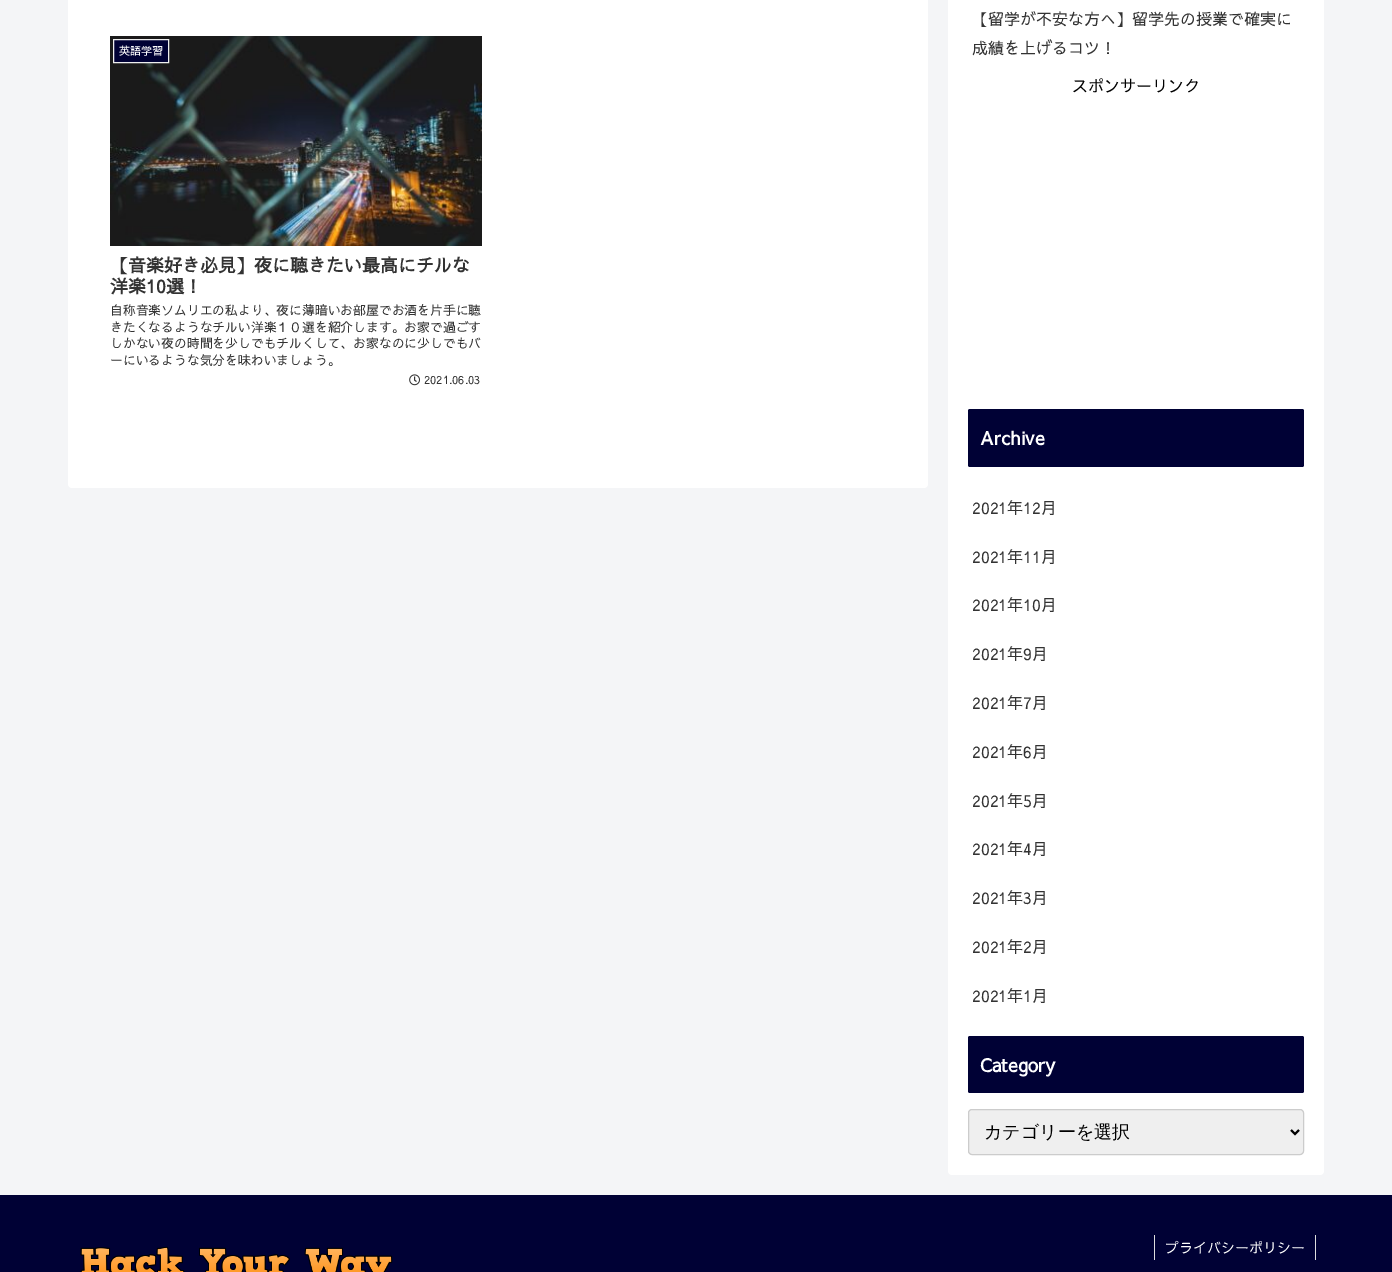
%!PS-Adobe-3.0
%%BoundingBox: 0 0 1392 1272
%%LanguageLevel: 3
%%Pages: 1
%%EndComments
%%BeginProlog
/m { moveto } bind def
/l { lineto } bind def
/h { closepath } bind def
/f { fill } bind def
/S { stroke } bind def
/q { gsave } bind def
/Q { grestore } bind def
/w { setlinewidth } bind def
/fn { [ exch dup neg 0 0 3 -1 roll 0 0 ] selectfont } def
/tx { moveto show } def
/bx { rectfill } def
/rr { 5 dict begin { /r /h /w /y /x } { exch def } forall
  x r add y moveto x w add y 2 copy h add r arct x w add y h add x 1 index r arct
  x y h add x y r arct x y 2 copy exch w add exch r arct closepath end } def
/im { 5 dict begin { /h /w /y /x /name } { exch def } forall
  gsave x y translate w h scale
  w h 8 [w 0 0 h 0 0] name (r) file false 3 colorimage grestore end } def
%%EndProlog
%%BeginSetup
<< /PageSize [1392 1272] >> setpagedevice
%%EndSetup
%%Page: 1 1
0 1272 translate 1 -1 scale
4 setmiterlimit
0.957 0.961 0.969 setrgbcolor
0 0 1392 1272 bx
1 setgray
68 -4 860 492 4 rr f
(image0.raw) 110 36 372 210 im
0 0.004 0.208 setrgbcolor
113.5 39.5 m 168.5 39.5 l 168.5 62.5 l 113.5 62.5 l h q f Q
0.933 setgray
S
/SawarabiGothic-Regular 11 fn
1 setgray
(英語学習) 119 55 tx
/SawarabiGothic-Bold 18 fn
0.2 setgray
(【音楽好き必見】夜に聴きたい最高にチルな) 110 272 tx
(洋楽10選！) 110 293 tx
/SawarabiGothic-Regular 12.8 fn
(自称音楽ソムリエの私より、夜に薄暗いお部屋でお酒を片手に聴) 110 315 tx
(きたくなるようなチルい洋楽１０選を紹介します。お家で過ごす) 110 332 tx
(しかない夜の時間を少しでもチルくして、お家なのに少しでもバ) 110 348 tx
(ーにいるような気分を味わいましょう。) 110 365 tx
(image1.raw) 409 374 11 12 im
/SawarabiGothic-Regular 11.25 fn
(2021.06.03) 424 384 tx
1 setgray
948 -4 376 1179 4 rr f
/SawarabiGothic-Regular 16 fn
0.2 setgray
(【留学が不安な方へ】留学先の授業で確実に) 972 25 tx
(成績を上げるコツ！) 972 54 tx
0 setgray
(スポンサーリンク) 1072 92 tx
0 0.004 0.208 setrgbcolor
968 409 336 58 2 rr f
/SawarabiGothic-Bold 18.5 fn
1 setgray
(Archive) 980 445 tx
/SawarabiGothic-Regular 16 fn
0.2 setgray
(2021年12月) 972 514 tx
(2021年11月) 972 563 tx
(2021年10月) 972 611 tx
(2021年9月) 972 660 tx
(2021年7月) 972 709 tx
(2021年6月) 972 758 tx
(2021年5月) 972 807 tx
(2021年4月) 972 855 tx
(2021年3月) 972 904 tx
(2021年2月) 972 953 tx
(2021年1月) 972 1002 tx
0 0.004 0.208 setrgbcolor
968 1036 336 57 2 rr f
/SawarabiGothic-Bold 18.5 fn
1 setgray
(Category) 980 1072 tx
0.937 setgray
968.5 1109.5 335 45 3.5 rr q f Q
0.8 setgray
S
0 setgray
2 w
1291 1130 m 1295 1134 l 1299 1130 l S
/WenQuanYiZenHei-Medium 18 fn
(カテゴリーを選択) 984 1138 tx
0 0.004 0.208 setrgbcolor
0 1195 1392 77 bx
(image2.raw) 80 1246 313 26 im
0.867 setgray
1315 1235 1 25 bx
1154 1235 1 25 bx
/SawarabiGothic-Regular 14 fn
1 setgray
(プライバシーポリシー) 1165 1253 tx
showpage
%%EOF
